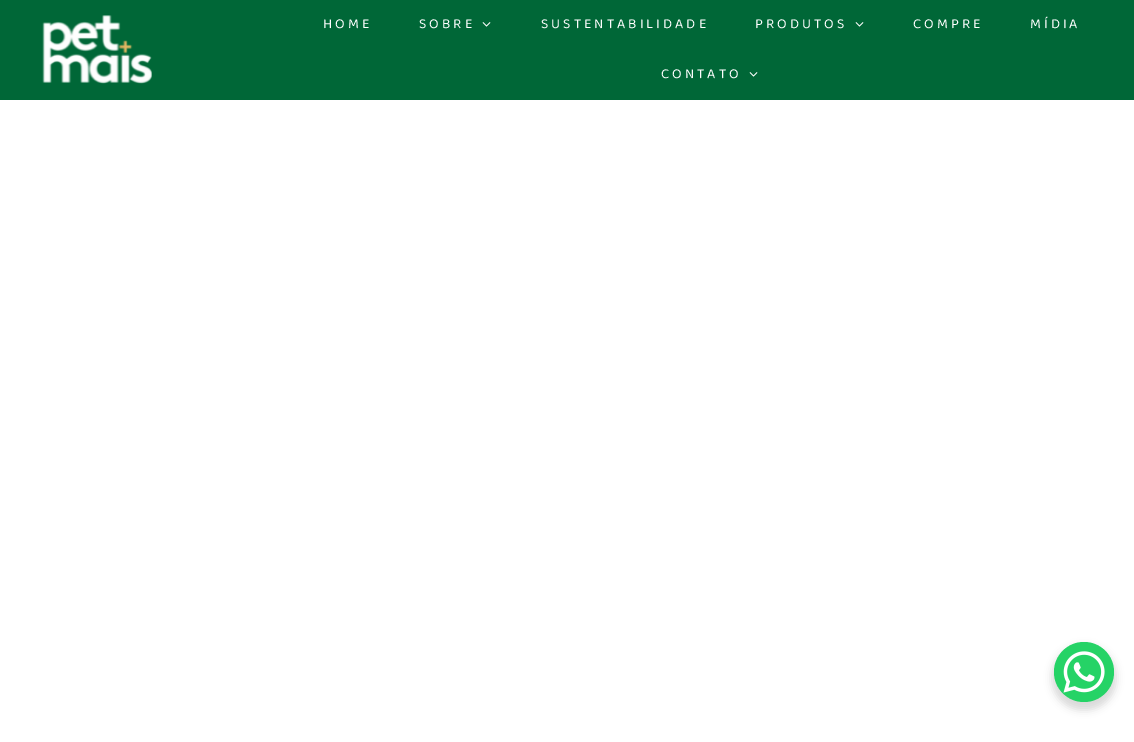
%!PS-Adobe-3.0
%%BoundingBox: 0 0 1134 742
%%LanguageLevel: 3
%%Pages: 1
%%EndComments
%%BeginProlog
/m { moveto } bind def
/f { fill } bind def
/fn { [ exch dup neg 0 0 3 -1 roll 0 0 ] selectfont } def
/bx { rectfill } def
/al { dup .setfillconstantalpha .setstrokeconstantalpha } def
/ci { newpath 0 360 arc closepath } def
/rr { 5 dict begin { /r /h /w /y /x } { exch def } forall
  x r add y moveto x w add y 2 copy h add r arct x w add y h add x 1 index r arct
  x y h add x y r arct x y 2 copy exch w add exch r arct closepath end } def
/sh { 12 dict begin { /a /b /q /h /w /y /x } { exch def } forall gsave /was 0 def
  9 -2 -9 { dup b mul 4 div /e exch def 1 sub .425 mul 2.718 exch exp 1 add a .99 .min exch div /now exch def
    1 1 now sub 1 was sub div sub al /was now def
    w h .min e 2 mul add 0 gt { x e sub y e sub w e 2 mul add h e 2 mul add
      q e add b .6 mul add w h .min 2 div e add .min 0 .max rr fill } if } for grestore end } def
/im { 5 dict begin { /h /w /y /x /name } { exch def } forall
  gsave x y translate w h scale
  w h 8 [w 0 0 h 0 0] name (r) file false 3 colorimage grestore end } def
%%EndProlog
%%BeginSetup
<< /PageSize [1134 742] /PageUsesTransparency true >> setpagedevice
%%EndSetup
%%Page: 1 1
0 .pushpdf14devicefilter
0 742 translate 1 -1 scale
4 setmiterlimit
1 setgray
0 0 1134 742 bx
0 0.404 0.216 setrgbcolor
0 0 1134 100 bx
(image0.raw) 42 15 110 69 im
/Baloo2-Regular 14 fn
1 setgray
323 28 m 3 0 (HOME) ashow
419 28 m 3 0 (SOBRE) ashow
(image1.raw) 482 22 9 5 im
541 28 m 3 0 (SUSTENTABILIDADE) ashow
755 28 m 3 0 (PRODUTOS) ashow
(image1.raw) 855 22 9 5 im
913 28 m 3 0 (COMPRE) ashow
1030 28 m 3 0 (MÍDIA) ashow
661 78 m 3 0 (CONTATO) ashow
(image1.raw) 749 72 9 5 im
0 setgray
1052 646 64 64 32 4 0.15 sh
0.145 0.827 0.4 setrgbcolor
1084 672 30 ci f
(image2.raw) 1063 651 42 42 im
.poppdf14devicefilter showpage
%%EOF
